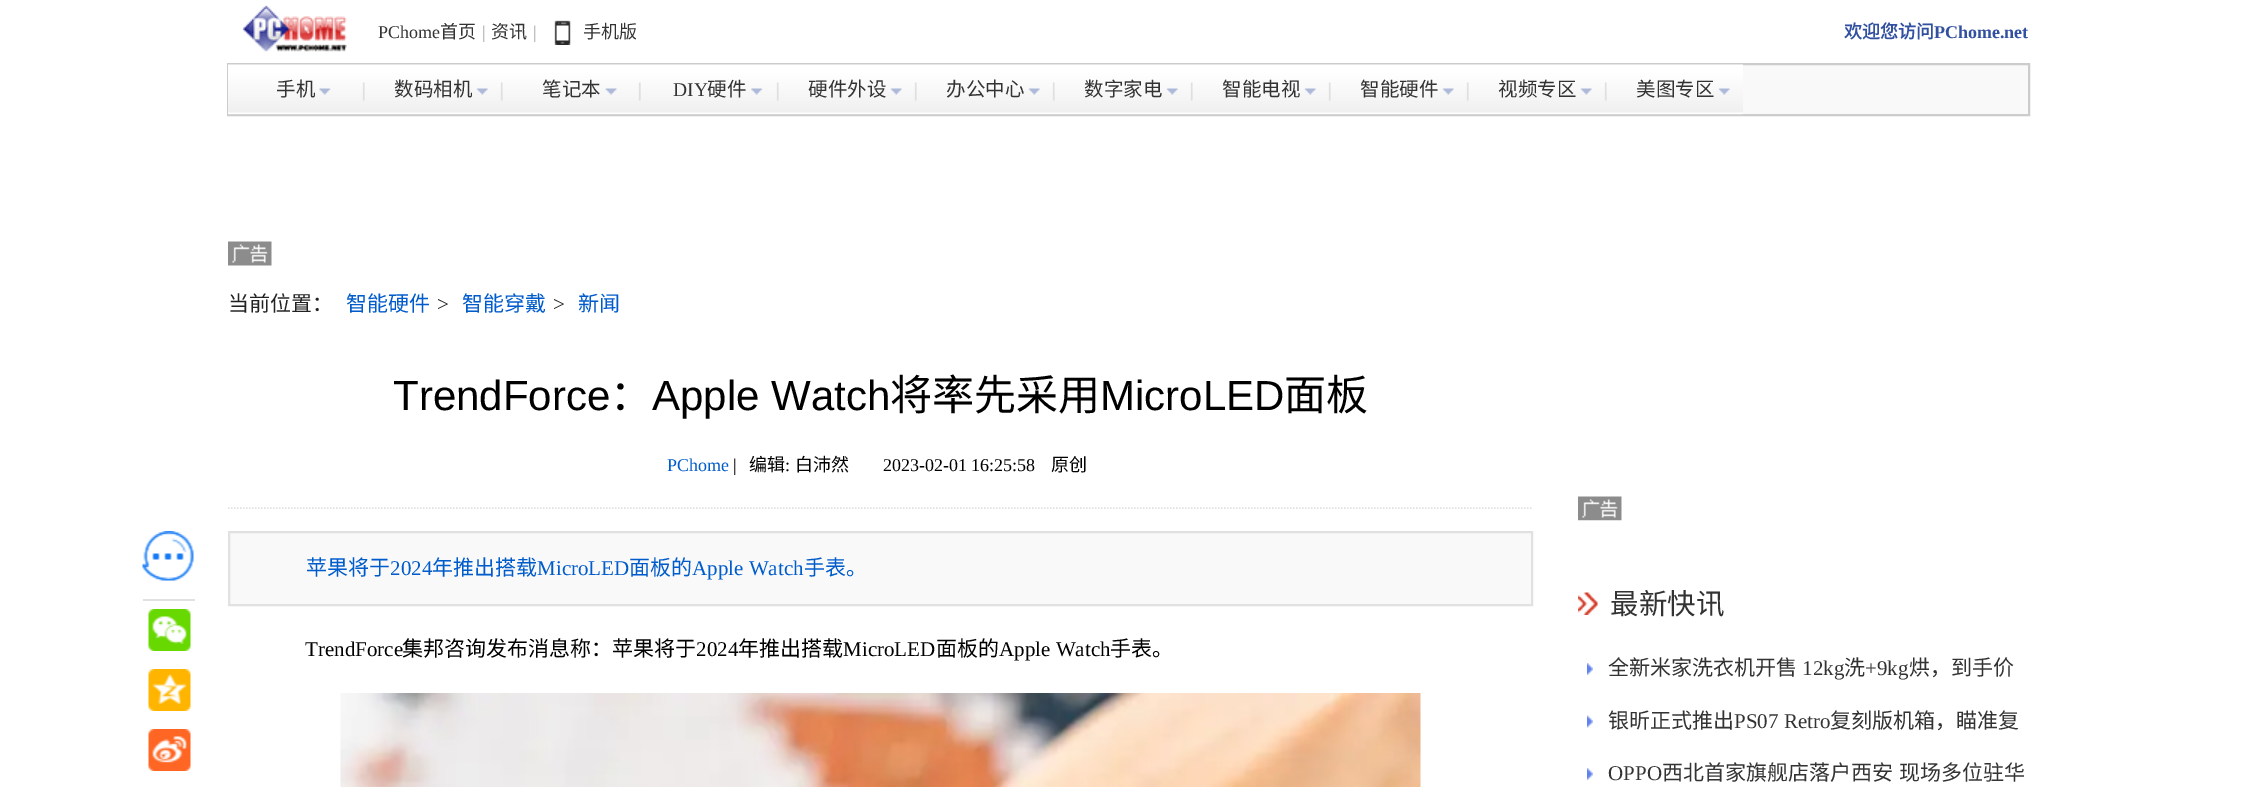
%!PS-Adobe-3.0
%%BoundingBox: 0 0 2256 787
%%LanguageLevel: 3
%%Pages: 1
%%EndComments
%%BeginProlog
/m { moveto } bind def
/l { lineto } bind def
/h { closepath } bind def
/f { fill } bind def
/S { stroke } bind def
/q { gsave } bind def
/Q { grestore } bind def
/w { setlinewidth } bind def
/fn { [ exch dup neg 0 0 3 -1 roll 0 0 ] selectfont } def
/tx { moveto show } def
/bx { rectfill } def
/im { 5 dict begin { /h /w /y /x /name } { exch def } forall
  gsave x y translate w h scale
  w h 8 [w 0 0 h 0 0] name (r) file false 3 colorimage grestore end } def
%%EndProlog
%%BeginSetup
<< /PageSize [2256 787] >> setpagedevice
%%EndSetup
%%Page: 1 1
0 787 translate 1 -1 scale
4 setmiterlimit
1 setgray
0 0 2256 787 bx
(image0.raw) 243 5 104 47 im
/LiberationSerif-Regular 18 fn
0.2 setgray
(PChome) 378 38 tx
/NotoSansCJKSC-Regular 18 fn
(首页) 440 38 tx
/LiberationSerif-Regular 18 fn
0.667 setgray
(|) 482 38 tx
/NotoSansCJKSC-Regular 18 fn
0.2 setgray
(资讯) 491 38 tx
/LiberationSerif-Regular 18 fn
0.667 setgray
(|) 533 38 tx
(image1.raw) 554 20 17 25 im
/NotoSansCJKSC-Regular 18 fn
0.2 setgray
(手机版) 583 38 tx
/NotoSansCJKSC-Bold 18 fn
0.196 0.314 0.627 setrgbcolor
(欢迎您访问) 1844 38 tx
/LiberationSerif-Bold 18 fn
(PChome.net) 1934 38 tx
0.976 setgray
228 64 m 2029 64 l 2029 115 l 228 115 l h q f Q
0.8 setgray
2 w
S
(image2.raw) 228 64 138 51 im
(image3.raw) 319 88 12 7 im
/NotoSansCJKSC-Regular 19.5 fn
0.2 setgray
(手机) 276 96 tx
(image4.raw) 366 64 138 51 im
(image5.raw) 476 88 12 7 im
(数码相机) 394 96 tx
(image6.raw) 504 64 138 51 im
(image7.raw) 605 88 12 7 im
(笔记本) 542 96 tx
(image4.raw) 642 64 138 51 im
(image8.raw) 751 88 12 7 im
/LiberationSerif-Regular 19.5 fn
(DIY) 673 96 tx
/NotoSansCJKSC-Regular 19.5 fn
(硬件) 707 96 tx
(image4.raw) 780 64 138 51 im
(image9.raw) 890 88 12 7 im
(硬件外设) 808 96 tx
(image4.raw) 918 64 138 51 im
(image9.raw) 1028 88 12 7 im
(办公中心) 946 96 tx
(image4.raw) 1056 64 138 51 im
(image9.raw) 1166 88 12 7 im
(数字家电) 1084 96 tx
(image4.raw) 1194 64 138 51 im
(image9.raw) 1304 88 12 7 im
(智能电视) 1222 96 tx
(image4.raw) 1332 64 138 51 im
(image9.raw) 1442 88 12 7 im
(智能硬件) 1360 96 tx
(image4.raw) 1470 64 138 51 im
(image10.raw) 1580 88 12 7 im
(视频专区) 1498 96 tx
(image11.raw) 1608 64 135 51 im
(image9.raw) 1718 88 12 7 im
(美图专区) 1636 96 tx
(image12.raw) 228 241 44 25 im
/NotoSansCJKSC-Regular 21 fn
0.133 setgray
(当前位置：) 228 311 tx
0 0.357 0.796 setrgbcolor
(智能硬件) 346 311 tx
/LiberationSerif-Regular 21 fn
0.133 setgray
(>) 437 311 tx
/NotoSansCJKSC-Regular 21 fn
0 0.357 0.796 setrgbcolor
(智能穿戴) 462 311 tx
/LiberationSerif-Regular 21 fn
0.133 setgray
(>) 553 311 tx
/NotoSansCJKSC-Regular 21 fn
0 0.357 0.796 setrgbcolor
(新闻) 578 311 tx
(image13.raw) 142 531 52 50 im
0.882 setgray
143 599 52 2 bx
(image14.raw) 148 609 43 42 im
(image15.raw) 148 669 43 42 im
(image16.raw) 148 729 43 42 im
/LiberationSans-Regular 42 fn
0 setgray
(TrendForce) 393 410 tx
/NotoSansCJKSC-Regular 42 fn
(：) 610 410 tx
/LiberationSans-Regular 42 fn
(Apple Watch) 652 410 tx
/NotoSansCJKSC-Regular 42 fn
(将率先采用) 890 410 tx
/LiberationSans-Regular 42 fn
(MicroLED) 1100 410 tx
/NotoSansCJKSC-Regular 42 fn
(面板) 1284 410 tx
0.882 setgray
1.5 w
[1.5 1.5] 0 setdash
228 508 m 1533 508 l S
/LiberationSerif-Regular 18 fn
0 0.357 0.796 setrgbcolor
(PChome) 667 471 tx
0 setgray
(|) 733 471 tx
/NotoSansCJKSC-Regular 18 fn
(编辑) 749 471 tx
/LiberationSerif-Regular 18 fn
(:) 785 471 tx
/NotoSansCJKSC-Regular 18 fn
(白沛然) 795 471 tx
/LiberationSerif-Regular 18 fn
(2023-02-01 16:25:58) 883 471 tx
/NotoSansCJKSC-Regular 18 fn
(原创) 1051 471 tx
0.976 setgray
229 532 m 1532 532 l 1532 605 l 229 605 l h q f Q
0.882 setgray
2 w
[] 0 setdash
S
/NotoSansCJKSC-Regular 21 fn
0 0.357 0.796 setrgbcolor
(苹果将于) 306 575 tx
/LiberationSerif-Regular 21 fn
(2024) 390 575 tx
/NotoSansCJKSC-Regular 21 fn
(年推出搭载) 432 575 tx
/LiberationSerif-Regular 21 fn
(MicroLED) 537 575 tx
/NotoSansCJKSC-Regular 21 fn
(面板的) 629 575 tx
/LiberationSerif-Regular 21 fn
(Apple Watch) 692 575 tx
/NotoSansCJKSC-Regular 21 fn
(手表。) 804 575 tx
/LiberationSerif-Regular 21 fn
0 setgray
(TrendForce) 305 656 tx
/NotoSansCJKSC-Regular 21 fn
(集邦咨询发布消息称：苹果将于) 402 656 tx
/LiberationSerif-Regular 21 fn
(2024) 696 656 tx
/NotoSansCJKSC-Regular 21 fn
(年推出搭载) 738 656 tx
/LiberationSerif-Regular 21 fn
(MicroLED) 843 656 tx
/NotoSansCJKSC-Regular 21 fn
(面板的) 936 656 tx
/LiberationSerif-Regular 21 fn
(Apple Watch) 999 656 tx
/NotoSansCJKSC-Regular 21 fn
(手表。) 1110 656 tx
(image17.raw) 340 693 1081 94 im
(image18.raw) 1578 496 44 25 im
(image19.raw) 1578 592 20 23 im
/NotoSansCJKSC-Regular 28.5 fn
0.2 setgray
(最新快讯) 1610 614 tx
(image20.raw) 1587 663 6 12 im
/NotoSansCJKSC-Regular 21 fn
(全新米家洗衣机开售) 1608 675 tx
/LiberationSerif-Regular 21 fn
(12kg) 1802 675 tx
/NotoSansCJKSC-Regular 21 fn
(洗) 1844 675 tx
/LiberationSerif-Regular 21 fn
(+9kg) 1865 675 tx
/NotoSansCJKSC-Regular 21 fn
(烘，到手价) 1909 675 tx
(image21.raw) 1587 715 6 13 im
(银昕正式推出) 1608 728 tx
/LiberationSerif-Regular 21 fn
(PS07 Retro) 1734 728 tx
/NotoSansCJKSC-Regular 21 fn
(复刻版机箱，瞄准复) 1830 728 tx
(image20.raw) 1587 768 6 12 im
/LiberationSerif-Regular 21 fn
(OPPO) 1608 780 tx
/NotoSansCJKSC-Regular 21 fn
1662 780 m 1 0 32 (西北首家旗舰店落户西安 现场多位驻华) widthshow
showpage
%%EOF
